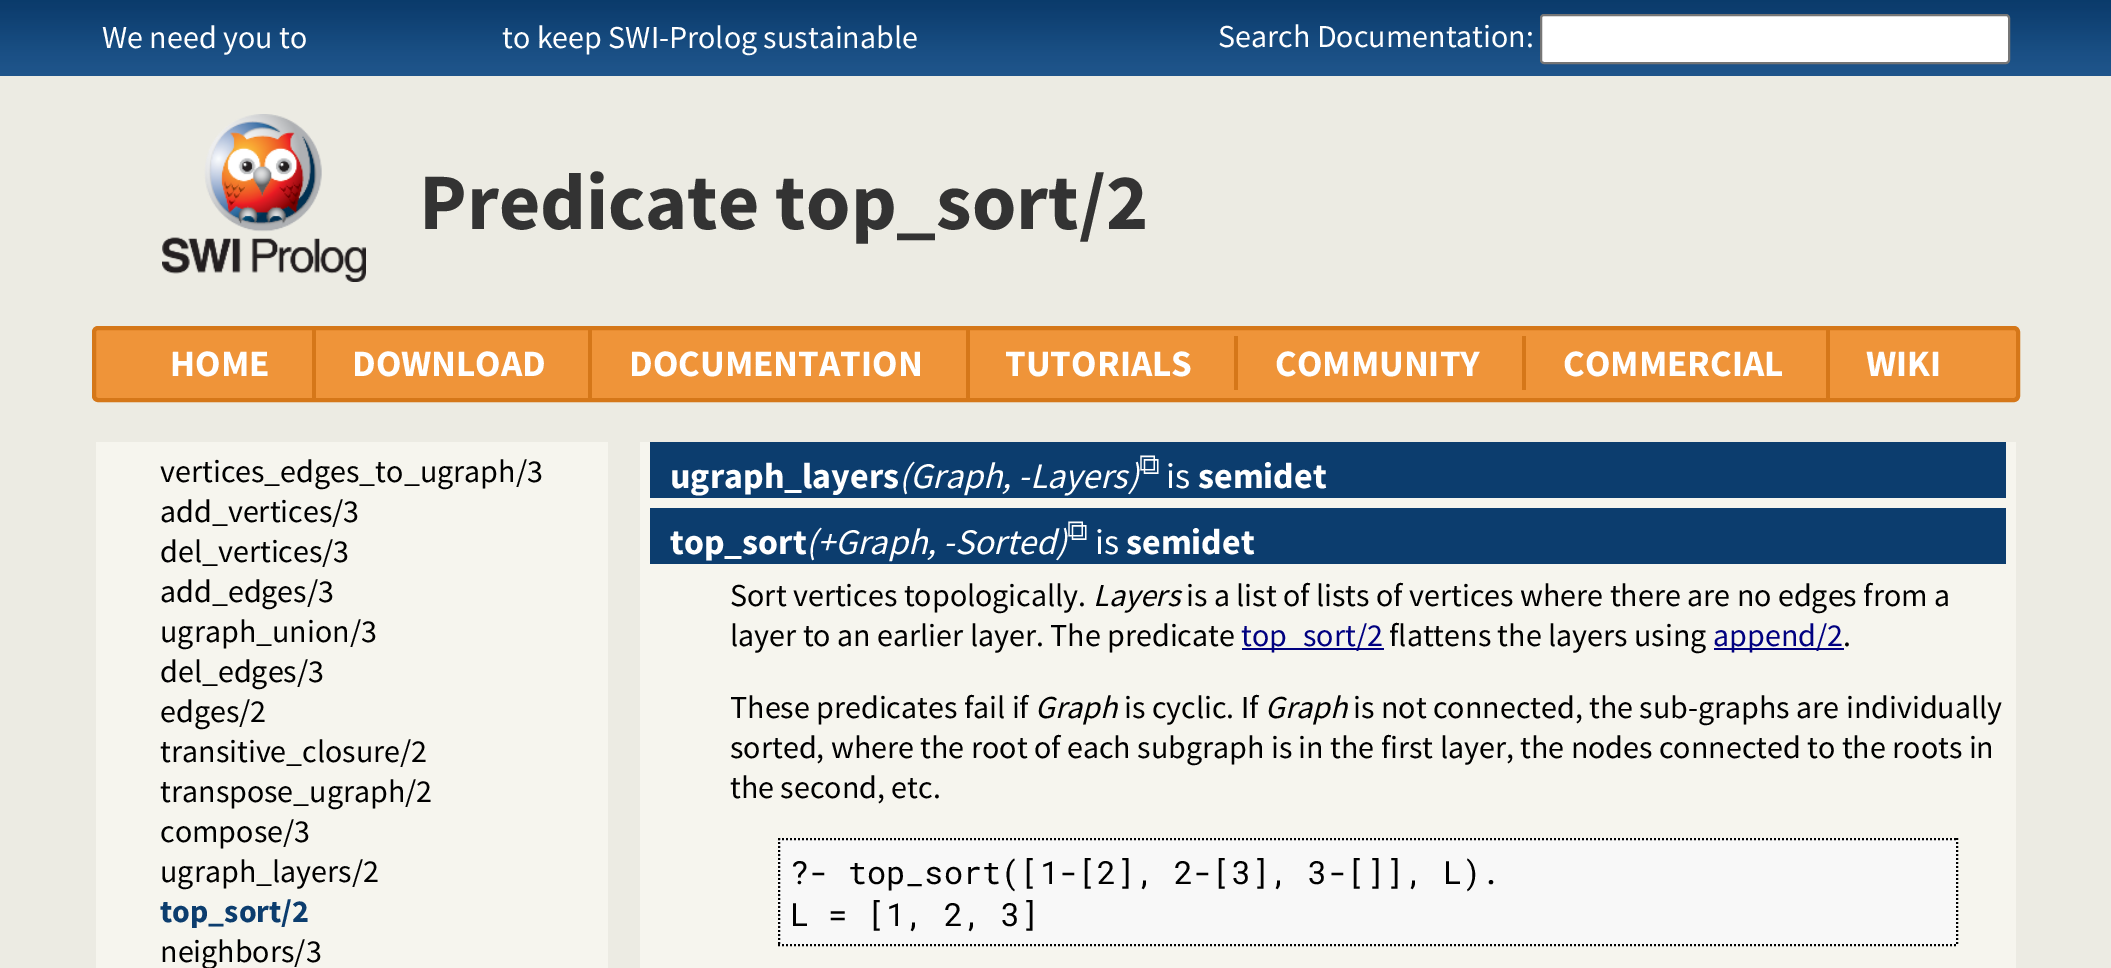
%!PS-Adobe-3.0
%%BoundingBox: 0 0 2111 968
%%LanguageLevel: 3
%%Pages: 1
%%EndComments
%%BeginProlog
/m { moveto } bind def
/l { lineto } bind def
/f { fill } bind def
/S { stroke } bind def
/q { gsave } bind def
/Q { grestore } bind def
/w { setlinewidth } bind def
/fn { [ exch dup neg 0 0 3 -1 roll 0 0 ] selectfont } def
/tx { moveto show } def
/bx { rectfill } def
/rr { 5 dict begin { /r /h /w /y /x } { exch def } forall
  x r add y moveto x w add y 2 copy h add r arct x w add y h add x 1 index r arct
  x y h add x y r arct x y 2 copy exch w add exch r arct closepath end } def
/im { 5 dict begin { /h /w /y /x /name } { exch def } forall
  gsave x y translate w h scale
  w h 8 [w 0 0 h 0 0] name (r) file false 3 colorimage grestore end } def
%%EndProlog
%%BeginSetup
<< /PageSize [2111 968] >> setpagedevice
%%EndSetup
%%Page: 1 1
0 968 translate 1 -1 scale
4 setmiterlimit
0.925 0.922 0.89 setrgbcolor
0 0 2111 968 bx
(image0.raw) 0 0 2111 76 im
/SourceSansPro-Regular 32 fn
1 setgray
(We need you to) 102 48 tx
(to keep SWI-Prolog sustainable) 502 48 tx
(Search Documentation:) 1218 47 tx
1541 15 468 48 3 rr q f Q
0.463 setgray
2 w
S
(image1.raw) 162 114 204 168 im
/SourceSansPro-Bold 80 fn
0.2 setgray
(Predicate top_sort/2) 419 229 tx
0.937 0.58 0.224 setrgbcolor
94 328 1924 72 4 rr q f Q
0.835 0.467 0.098 setrgbcolor
4 w
S
/SourceSansPro-Bold 37.25 fn
1 setgray
(HOME) 170 376 tx
0.835 0.467 0.098 setrgbcolor
312 330 4 68 bx
1 setgray
(DOWNLOAD) 352 376 tx
0.835 0.467 0.098 setrgbcolor
588 330 4 68 bx
1 setgray
(DOCUMENTATION) 629 376 tx
0.835 0.467 0.098 setrgbcolor
966 330 4 68 bx
1 setgray
(TUTORIALS) 1005 376 tx
0.835 0.467 0.098 setrgbcolor
1234 336 4 54 bx
1 setgray
(COMMUNITY) 1275 376 tx
0.835 0.467 0.098 setrgbcolor
1522 336 4 54 bx
1 setgray
(COMMERCIAL) 1563 376 tx
0.835 0.467 0.098 setrgbcolor
1826 330 4 68 bx
1 setgray
(WIKI) 1866 376 tx
0.965 0.961 0.933 setrgbcolor
96 442 512 526 bx
/SourceSansPro-Regular 32 fn
0 setgray
(vertices_edges_to_ugraph/3) 160 482 tx
(add_vertices/3) 160 522 tx
(del_vertices/3) 160 562 tx
(add_edges/3) 160 602 tx
(ugraph_union/3) 160 642 tx
(del_edges/3) 160 682 tx
(edges/2) 160 722 tx
(transitive_closure/2) 160 762 tx
(transpose_ugraph/2) 160 802 tx
(compose/3) 160 842 tx
(ugraph_layers/2) 160 882 tx
/SourceSansPro-Bold 32 fn
0.047 0.239 0.431 setrgbcolor
(top_sort/2) 160 922 tx
/SourceSansPro-Regular 32 fn
0 setgray
(neighbors/3) 160 962 tx
0.965 0.961 0.933 setrgbcolor
640 442 1376 526 bx
0.047 0.239 0.431 setrgbcolor
650 442 1356 56 bx
/SourceSansPro-Bold 36 fn
1 setgray
(ugraph_layers) 670 488 tx
/SourceSansPro-Italic 36 fn
(\(Graph, -Layers\)) 899 488 tx
/FreeSerif-Regular 29 fn
(⧉) 1139 474 tx
/SourceSansPro-Regular 36 fn
(is) 1166 488 tx
/SourceSansPro-Bold 36 fn
(semidet) 1198 488 tx
0.047 0.239 0.431 setrgbcolor
650 508 1356 56 bx
1 setgray
(top_sort) 670 554 tx
/SourceSansPro-Italic 36 fn
(\(+Graph, -Sorted\)) 806 554 tx
/FreeSerif-Regular 29 fn
(⧉) 1067 540 tx
/SourceSansPro-Regular 36 fn
(is) 1095 554 tx
/SourceSansPro-Bold 36 fn
(semidet) 1126 554 tx
/SourceSansPro-Regular 32 fn
0 setgray
(Sort vertices topologically.) 730 606 tx
/SourceSansPro-Italic 32 fn
(Layers) 1093 606 tx
/SourceSansPro-Regular 32 fn
(is a list of lists of vertices where there are no edges from a) 1186 606 tx
(layer to an earlier layer. The predicate) 730 646 tx
0 0 0.502 setrgbcolor
1242 648 142 2 bx
(top_sort/2) 1241 646 tx
0 setgray
(flattens the layers using) 1389 646 tx
0 0 0.502 setrgbcolor
1714 648 130 2 bx
(append/2) 1713 646 tx
0 setgray
(.) 1843 646 tx
(These predicates fail if) 730 718 tx
/SourceSansPro-Italic 32 fn
(Graph) 1035 718 tx
/SourceSansPro-Regular 32 fn
(is cyclic. If) 1124 718 tx
/SourceSansPro-Italic 32 fn
(Graph) 1265 718 tx
/SourceSansPro-Regular 32 fn
(is not connected, the sub-graphs are individually) 1353 718 tx
(sorted, where the root of each subgraph is in the first layer, the nodes connected to the roots in) 730 758 tx
(the second, etc.) 730 798 tx
0.973 setgray
778 838 1180 108 bx
0 setgray
2 w
[2 2] 0 setdash
778 839 m 1958 839 l S
1957 838 m 1957 946 l S
778 945 m 1958 945 l S
779 838 m 779 946 l S
/RobotoMono-Regular 32 fn
(?- top_sort\([1-[2], 2-[3], 3-[]], L\).) 790 884 tx
(L = [1, 2, 3]) 790 926 tx
showpage
%%EOF
